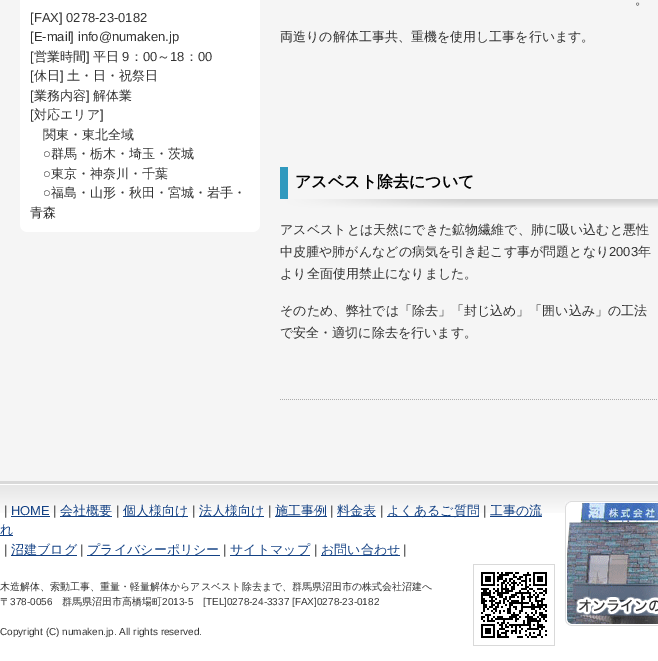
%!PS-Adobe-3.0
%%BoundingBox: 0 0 658 661
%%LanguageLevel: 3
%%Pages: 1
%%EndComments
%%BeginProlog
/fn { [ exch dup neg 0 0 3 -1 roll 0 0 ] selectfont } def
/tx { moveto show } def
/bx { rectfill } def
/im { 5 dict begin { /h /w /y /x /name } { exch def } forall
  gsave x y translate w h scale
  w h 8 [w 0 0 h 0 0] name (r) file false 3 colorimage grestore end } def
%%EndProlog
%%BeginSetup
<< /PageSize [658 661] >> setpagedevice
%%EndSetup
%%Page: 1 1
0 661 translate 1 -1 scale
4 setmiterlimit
0.961 setgray
0 0 658 661 bx
(image0.raw) 20 0 240 232 im
/LiberationSans-Regular 13 fn
0.2 setgray
([FAX] 0278-23-0182) 30 22 tx
([E-mail] info@numaken.jp) 30 41 tx
([) 30 61 tx
/WenQuanYiZenHei-Medium 13 fn
(営業時間) 34 61 tx
/LiberationSans-Regular 13 fn
(]) 86 61 tx
/WenQuanYiZenHei-Medium 13 fn
(平日) 93 61 tx
/LiberationSans-Regular 13 fn
(9) 122 61 tx
/WenQuanYiZenHei-Medium 13 fn
(：) 130 61 tx
/LiberationSans-Regular 13 fn
(00) 143 61 tx
/WenQuanYiZenHei-Medium 13 fn
(～) 157 61 tx
/LiberationSans-Regular 13 fn
(18) 170 61 tx
/WenQuanYiZenHei-Medium 13 fn
(：) 185 61 tx
/LiberationSans-Regular 13 fn
(00) 198 61 tx
([) 30 80 tx
/WenQuanYiZenHei-Medium 13 fn
(休日) 34 80 tx
/LiberationSans-Regular 13 fn
(]) 60 80 tx
/WenQuanYiZenHei-Medium 13 fn
(土・日・祝祭日) 67 80 tx
/LiberationSans-Regular 13 fn
([) 30 100 tx
/WenQuanYiZenHei-Medium 13 fn
(業務内容) 34 100 tx
/LiberationSans-Regular 13 fn
(]) 86 100 tx
/WenQuanYiZenHei-Medium 13 fn
(解体業) 93 100 tx
/LiberationSans-Regular 13 fn
([) 30 119 tx
/WenQuanYiZenHei-Medium 13 fn
(対応エリア) 34 119 tx
/LiberationSans-Regular 13 fn
(]) 100 119 tx
/WenQuanYiZenHei-Medium 13 fn
(関東・東北全域) 43 139 tx
/LiberationSans-Regular 13 fn
(○) 43 158 tx
/WenQuanYiZenHei-Medium 13 fn
(群馬・栃木・埼玉・茨城) 51 158 tx
/LiberationSans-Regular 13 fn
(○) 43 178 tx
/WenQuanYiZenHei-Medium 13 fn
(東京・神奈川・千葉) 51 178 tx
/LiberationSans-Regular 13 fn
(○) 43 197 tx
/WenQuanYiZenHei-Medium 13 fn
(福島・山形・秋田・宮城・岩手・) 51 197 tx
(青森) 30 217 tx
(。) 635 4 tx
(両造りの解体工事共、重機を使用し工事を行います。) 280 41 tx
(image1.raw) 280 167 378 41 im
/WenQuanYiZenHei-Bold 16 fn
0 setgray
(アスベスト除去について) 295 187 tx
/WenQuanYiZenHei-Medium 13 fn
0.2 setgray
(アスベストとは天然にできた鉱物繊維で、肺に吸い込むと悪性) 280 234 tx
(中皮腫や肺がんなどの病気を引き起こす事が問題となり) 280 256 tx
/LiberationSans-Regular 13 fn
(2003) 609 256 tx
/WenQuanYiZenHei-Medium 13 fn
(年) 638 256 tx
(より全面使用禁止になりました。) 280 278 tx
(そのため、弊社では「除去」「封じ込め」「囲い込み」の工法) 280 315 tx
(で安全・適切に除去を行います。) 280 337 tx
(image2.raw) 280 399 377 1 im
1 setgray
0 513 658 148 bx
(image3.raw) 0 481 658 32 im
/LiberationSans-Regular 13 fn
0.2 setgray
(|) 4 515 tx
0.075 0.255 0.518 setrgbcolor
(HOME) 11 515 tx
11 516 39 1 bx
0.2 setgray
(|) 53 515 tx
0.075 0.255 0.518 setrgbcolor
60 516 52 1 bx
/WenQuanYiZenHei-Medium 13 fn
(会社概要) 60 515 tx
/LiberationSans-Regular 13 fn
0.2 setgray
(|) 116 515 tx
0.075 0.255 0.518 setrgbcolor
123 516 65 1 bx
/WenQuanYiZenHei-Medium 13 fn
(個人様向け) 123 515 tx
/LiberationSans-Regular 13 fn
0.2 setgray
(|) 192 515 tx
0.075 0.255 0.518 setrgbcolor
199 516 65 1 bx
/WenQuanYiZenHei-Medium 13 fn
(法人様向け) 199 515 tx
/LiberationSans-Regular 13 fn
0.2 setgray
(|) 268 515 tx
0.075 0.255 0.518 setrgbcolor
275 516 52 1 bx
/WenQuanYiZenHei-Medium 13 fn
(施工事例) 275 515 tx
/LiberationSans-Regular 13 fn
0.2 setgray
(|) 330 515 tx
0.075 0.255 0.518 setrgbcolor
337 516 39 1 bx
/WenQuanYiZenHei-Medium 13 fn
(料金表) 337 515 tx
/LiberationSans-Regular 13 fn
0.2 setgray
(|) 380 515 tx
0.075 0.255 0.518 setrgbcolor
387 516 92 1 bx
/WenQuanYiZenHei-Medium 13 fn
(よくあるご質問) 387 515 tx
/LiberationSans-Regular 13 fn
0.2 setgray
(|) 483 515 tx
0.075 0.255 0.518 setrgbcolor
490 516 52 1 bx
/WenQuanYiZenHei-Medium 13 fn
(工事の流) 490 515 tx
0 535 13 1 bx
(れ) 0 534 tx
/LiberationSans-Regular 13 fn
0.2 setgray
(|) 4 554 tx
0.075 0.255 0.518 setrgbcolor
11 555 66 1 bx
/WenQuanYiZenHei-Medium 13 fn
(沼建ブログ) 11 554 tx
/LiberationSans-Regular 13 fn
0.2 setgray
(|) 80 554 tx
0.075 0.255 0.518 setrgbcolor
87 555 133 1 bx
/WenQuanYiZenHei-Medium 13 fn
(プライバシーポリシー) 87 554 tx
/LiberationSans-Regular 13 fn
0.2 setgray
(|) 223 554 tx
0.075 0.255 0.518 setrgbcolor
230 555 80 1 bx
/WenQuanYiZenHei-Medium 13 fn
(サイトマップ) 230 554 tx
/LiberationSans-Regular 13 fn
0.2 setgray
(|) 314 554 tx
0.075 0.255 0.518 setrgbcolor
321 555 79 1 bx
/WenQuanYiZenHei-Medium 13 fn
(お問い合わせ) 321 554 tx
/LiberationSans-Regular 13 fn
0.2 setgray
(|) 403 554 tx
(image4.raw) 565 501 93 125 im
/WenQuanYiZenHei-Medium 10 fn
(木造解体、索動工事、重量・軽量解体からアスベスト除去まで、群馬県沼田市の株式会社沼建へ) 0 590 tx
(image5.raw) 473 564 82 82 im
(〒) 0 605 tx
/LiberationSans-Regular 10 fn
(378-0056) 10 605 tx
/WenQuanYiZenHei-Medium 10 fn
(群馬県沼田市高橋場町) 62 605 tx
/LiberationSans-Regular 10 fn
(2013-5) 162 605 tx
([TEL]0278-24-3337 [FAX]0278-23-0182) 203 605 tx
(Copyright \(C\) numaken.jp. All rights reserved.) 0 635 tx
showpage
%%EOF
